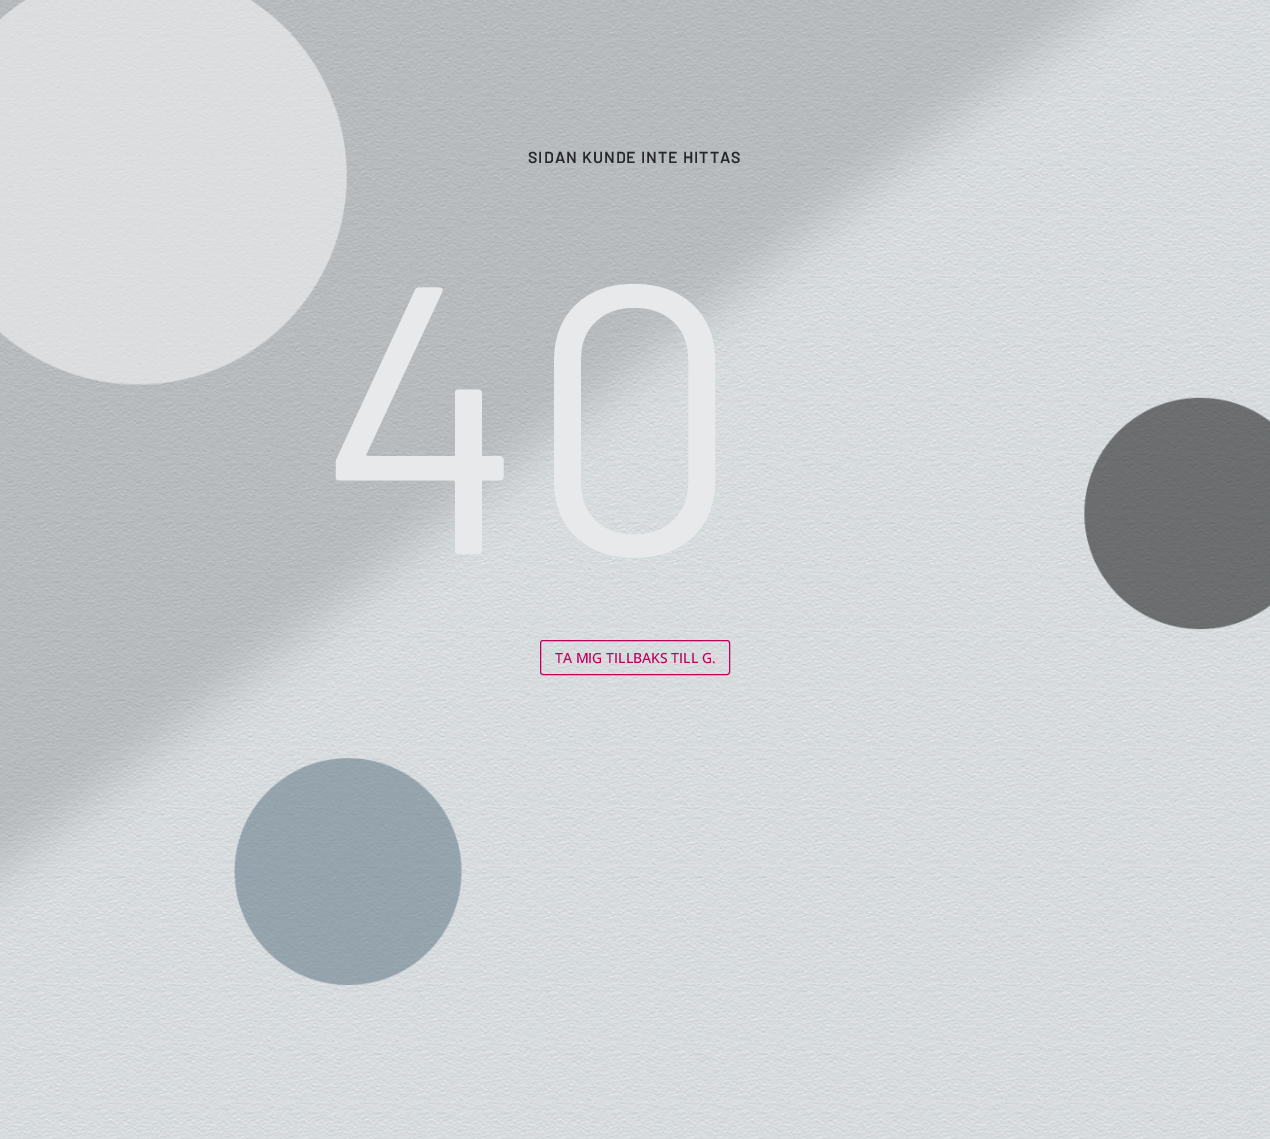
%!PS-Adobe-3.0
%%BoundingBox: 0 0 1270 1139
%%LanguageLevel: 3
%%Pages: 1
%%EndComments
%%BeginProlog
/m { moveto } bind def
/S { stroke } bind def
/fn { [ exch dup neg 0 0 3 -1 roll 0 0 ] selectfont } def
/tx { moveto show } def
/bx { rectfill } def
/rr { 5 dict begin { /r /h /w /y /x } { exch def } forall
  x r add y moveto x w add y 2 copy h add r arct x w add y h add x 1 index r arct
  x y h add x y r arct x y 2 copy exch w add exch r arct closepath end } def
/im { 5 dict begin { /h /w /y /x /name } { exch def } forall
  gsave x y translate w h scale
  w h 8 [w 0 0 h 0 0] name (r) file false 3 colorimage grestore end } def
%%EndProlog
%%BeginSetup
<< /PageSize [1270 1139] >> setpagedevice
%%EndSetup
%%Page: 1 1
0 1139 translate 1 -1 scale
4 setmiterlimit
1 setgray
0 0 1270 1139 bx
(image0.raw) 0 0 1270 1139 im
(image1.raw) 0 0 1270 986 im
/Barlow-SemiBold 16 fn
0.149 0.153 0.157 setrgbcolor
528 163 m 1 0 (SIDAN KUNDE INTE HITTAS) ashow
/Barlow-Regular 381 fn
0.906 0.914 0.918 setrgbcolor
(40) 317 554 tx
0.749 0 0.361 setrgbcolor
540.5 640.5 189 34 2.5 rr S
/OpenSans-Medium 14 fn
(TA MIG TILLBAKS TILL G.) 555 663 tx
showpage
%%EOF
